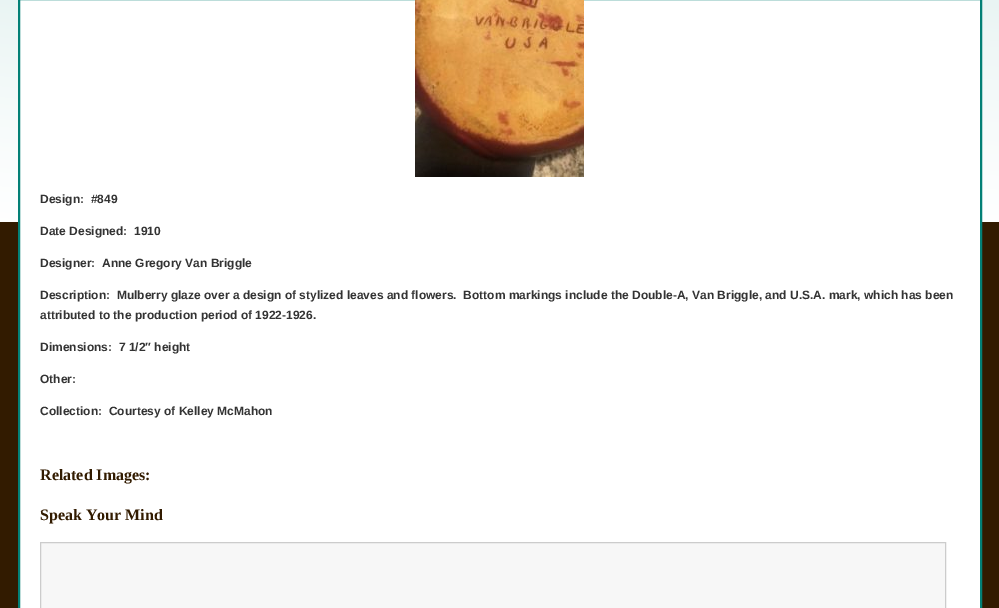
%!PS-Adobe-3.0
%%BoundingBox: 0 0 999 608
%%LanguageLevel: 3
%%Pages: 1
%%EndComments
%%BeginProlog
/m { moveto } bind def
/l { lineto } bind def
/h { closepath } bind def
/f { fill } bind def
/S { stroke } bind def
/q { gsave } bind def
/Q { grestore } bind def
/w { setlinewidth } bind def
/fn { [ exch dup neg 0 0 3 -1 roll 0 0 ] selectfont } def
/tx { moveto show } def
/bx { rectfill } def
/im { 5 dict begin { /h /w /y /x /name } { exch def } forall
  gsave x y translate w h scale
  w h 8 [w 0 0 h 0 0] name (r) file false 3 colorimage grestore end } def
%%EndProlog
%%BeginSetup
<< /PageSize [999 608] >> setpagedevice
%%EndSetup
%%Page: 1 1
0 608 translate 1 -1 scale
4 setmiterlimit
0.196 0.106 0 setrgbcolor
0 0 999 608 bx
(image0.raw) 0 0 999 222 im
1 setgray
19 -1 m 981 -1 l 981 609 l 19 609 l h q f Q
0.012 0.502 0.463 setrgbcolor
2 w
S
(image1.raw) 415 0 169 177 im
/LiberationSans-Bold 12 fn
0.2 setgray
(Design:  #849) 40 203 tx
(Date Designed:  1910) 40 235 tx
(Designer:  Anne Gregory Van Briggle) 40 267 tx
(Description:  Mulberry glaze over a design of stylized leaves and flowers.  Bottom markings include the Double-A, Van Briggle, and U.S.A. mark, which has been) 40 299 tx
(attributed to the production period of 1922-1926.) 40 319 tx
(Dimensions:  7 1/2″ height) 40 351 tx
(Other:) 40 383 tx
(Collection:  Courtesy of Kelley McMahon) 40 415 tx
/LiberationSerif-Bold 16 fn
0.196 0.106 0 setrgbcolor
(Related Images:) 40 480 tx
(Speak Your Mind) 40 520 tx
0.969 setgray
40.5 542.5 m 945.5 542.5 l 945.5 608.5 l 40.5 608.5 l h q f Q
0.8 setgray
1 w
S
showpage
%%EOF
